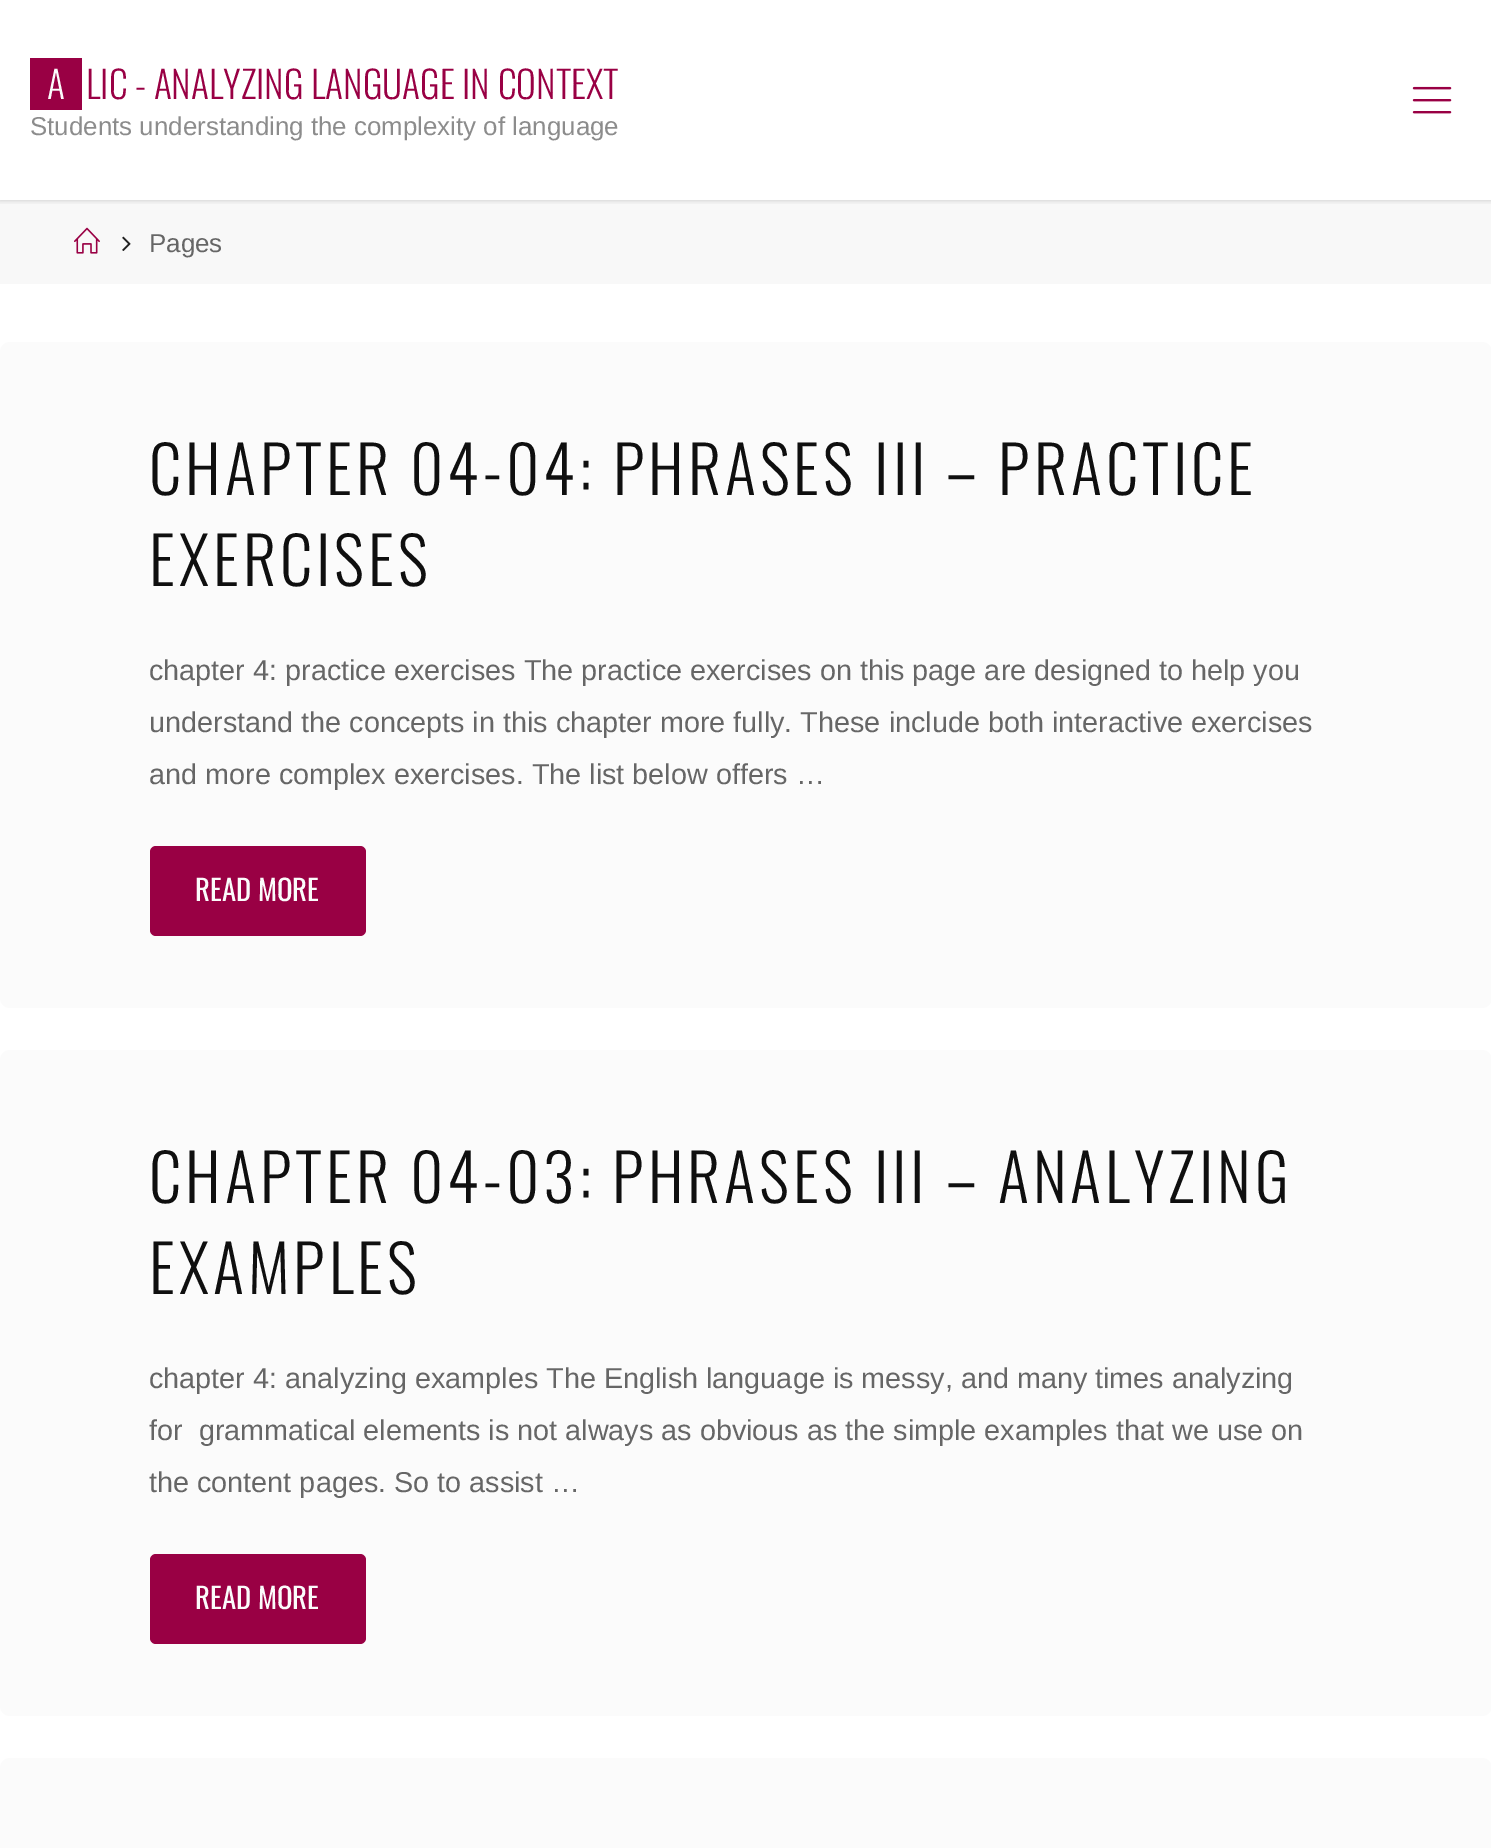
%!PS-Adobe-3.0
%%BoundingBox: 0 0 1491 1848
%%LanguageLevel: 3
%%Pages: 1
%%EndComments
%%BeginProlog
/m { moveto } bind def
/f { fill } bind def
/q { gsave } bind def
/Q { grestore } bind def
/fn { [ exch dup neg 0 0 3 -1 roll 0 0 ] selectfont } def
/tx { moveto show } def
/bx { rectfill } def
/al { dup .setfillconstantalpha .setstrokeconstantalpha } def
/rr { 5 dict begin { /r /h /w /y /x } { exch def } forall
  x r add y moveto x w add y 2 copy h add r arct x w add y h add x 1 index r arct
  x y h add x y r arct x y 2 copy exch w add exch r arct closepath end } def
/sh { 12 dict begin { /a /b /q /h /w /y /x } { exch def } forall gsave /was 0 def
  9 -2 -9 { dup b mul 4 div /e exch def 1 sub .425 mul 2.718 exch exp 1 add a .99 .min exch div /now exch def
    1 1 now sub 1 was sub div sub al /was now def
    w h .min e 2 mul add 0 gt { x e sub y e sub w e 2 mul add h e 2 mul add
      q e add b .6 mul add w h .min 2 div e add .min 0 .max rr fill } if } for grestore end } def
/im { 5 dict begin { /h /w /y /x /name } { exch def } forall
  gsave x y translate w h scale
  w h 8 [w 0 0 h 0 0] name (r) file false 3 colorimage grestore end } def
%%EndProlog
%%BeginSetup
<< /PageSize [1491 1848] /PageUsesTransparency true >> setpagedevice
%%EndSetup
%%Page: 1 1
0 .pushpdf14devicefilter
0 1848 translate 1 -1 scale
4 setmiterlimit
1 setgray
0 0 1491 1848 bx
0.973 setgray
0 200 1491 84 bx
q
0 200 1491 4 rectclip
0 setgray
0 0 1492 200 0 3 0.2 sh
Q
0.6 0 0.267 setrgbcolor
30 58 52 52 bx
/Oswald-Light 37.5 fn
0.984 setgray
(A) 47 99 tx
0.6 0 0.267 setrgbcolor
(LIC - ANALYZING LANGUAGE IN CONTEXT) 86 99 tx
/LiberationSans-Regular 25.9 fn
0.549 setgray
(Students understanding the complexity of language) 30 135 tx
(image0.raw) 1412 86 40 28 im
(image1.raw) 74 227 26 27 im
(image2.raw) 122 236 9 15 im
0.4 setgray
(Pages) 149 252 tx
0.984 setgray
0 342 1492 666 10 rr f
/Oswald-Light 64.75 fn
0.059 setgray
149 495 m 4 0 (CHAPTER 04-04: PHRASES III – PRACTICE) ashow
149 586 m 4 0 (EXERCISES) ashow
/LiberationSans-Regular 28.8 fn
0.4 setgray
(chapter 4: practice exercises The practice exercises on this page are designed to help you) 149 680 tx
(understand the concepts in this chapter more fully. These include both interactive exercises) 149 732 tx
(and more complex exercises. The list below offers …) 149 784 tx
0.6 0 0.267 setrgbcolor
150 846 216 90 6 rr f
/Oswald-Regular 28.8 fn
0.984 setgray
(READ MORE) 195 901 tx
0 1050 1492 666 10 rr f
/Oswald-Light 64.75 fn
0.059 setgray
149 1203 m 4 0 (CHAPTER 04-03: PHRASES III – ANALYZING) ashow
149 1294 m 4 0 (EXAMPLES) ashow
/LiberationSans-Regular 28.8 fn
0.4 setgray
(chapter 4: analyzing examples The English language is messy, and many times analyzing) 149 1388 tx
(for  grammatical elements is not always as obvious as the simple examples that we use on) 149 1440 tx
(the content pages. So to assist …) 149 1492 tx
0.6 0 0.267 setrgbcolor
150 1554 216 90 6 rr f
/Oswald-Regular 28.8 fn
0.984 setgray
(READ MORE) 195 1609 tx
0 1758 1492 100 10 rr f
.poppdf14devicefilter showpage
%%EOF
